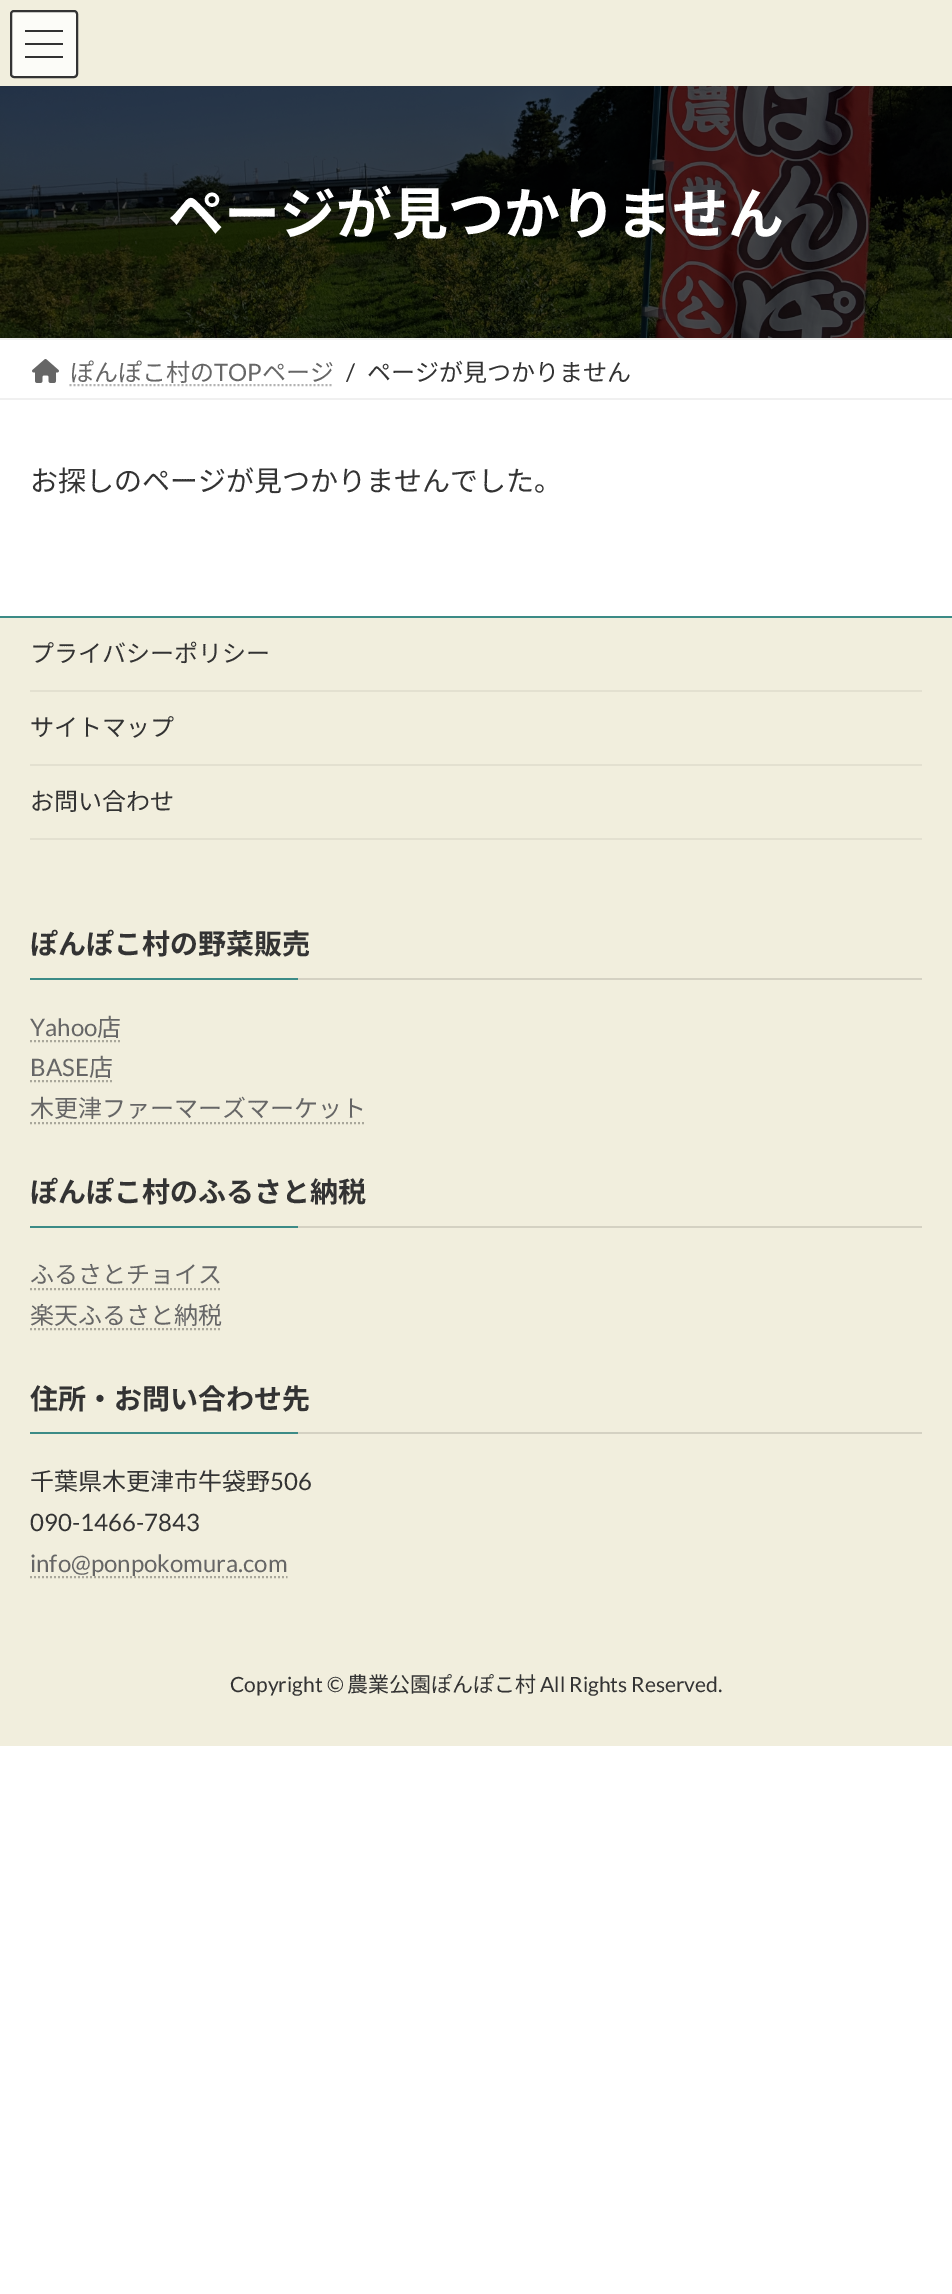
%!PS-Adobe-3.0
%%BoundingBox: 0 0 952 2294
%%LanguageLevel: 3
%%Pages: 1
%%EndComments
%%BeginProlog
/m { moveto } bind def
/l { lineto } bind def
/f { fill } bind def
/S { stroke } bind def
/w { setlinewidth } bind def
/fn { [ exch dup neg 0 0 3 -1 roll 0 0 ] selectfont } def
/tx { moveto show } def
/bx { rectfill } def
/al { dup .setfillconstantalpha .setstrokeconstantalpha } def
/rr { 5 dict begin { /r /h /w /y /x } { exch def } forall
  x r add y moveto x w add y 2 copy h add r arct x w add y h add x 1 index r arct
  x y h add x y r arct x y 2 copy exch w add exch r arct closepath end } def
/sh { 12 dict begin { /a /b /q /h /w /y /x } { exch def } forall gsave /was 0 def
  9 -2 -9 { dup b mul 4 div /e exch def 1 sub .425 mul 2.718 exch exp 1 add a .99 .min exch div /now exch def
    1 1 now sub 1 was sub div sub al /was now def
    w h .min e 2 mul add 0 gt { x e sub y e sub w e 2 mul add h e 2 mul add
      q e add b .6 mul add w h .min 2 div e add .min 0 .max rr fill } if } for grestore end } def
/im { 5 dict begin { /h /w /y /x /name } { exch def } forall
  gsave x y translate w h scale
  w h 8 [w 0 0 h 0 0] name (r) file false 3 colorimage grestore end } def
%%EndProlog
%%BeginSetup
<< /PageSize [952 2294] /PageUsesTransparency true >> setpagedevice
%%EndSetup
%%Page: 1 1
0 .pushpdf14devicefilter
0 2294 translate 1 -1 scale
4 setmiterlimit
1 setgray
0 0 952 2294 bx
(image0.raw) 0 86 952 252 im
0 setgray
0 2 952 86 0 3 0.05 sh
0.945 0.933 0.867 setrgbcolor
0 0 952 86 bx
0.988 0.988 0.973 setrgbcolor
10 10 68 68 4 rr f
0.196 setgray
25 30 38 2 bx
25 43 38 2 bx
25 56 38 2 bx
0.2 setgray
2 w
11 11 66 66 3 rr S
/NotoSansJP-Bold 56 fn
1 setgray
(ページが見つかりません) 168 234 tx
0.941 setgray
0 338 952 2 bx
0 398 952 2 bx
(image1.raw) 32 359 27 24 im
/NotoSansJP-Regular 24 fn
0.4 setgray
(ぽんぽこ村の) 70 381 tx
/Lato-Regular 24 fn
(TOP) 214 381 tx
0.702 setgray
[2 2] 0 setdash
69.5 385 m 333.5 385 l S
/NotoSansJP-Regular 24 fn
0.4 setgray
(ページ) 262 381 tx
/Lato-Regular 24 fn
0.2 setgray
(/) 346 381 tx
/NotoSansJP-Regular 24 fn
(ページが見つかりません) 367 381 tx
/NotoSansJP-Regular 28 fn
(お探しのページが見つかりませんでした。) 30 491 tx
0.945 0.933 0.867 setrgbcolor
0 618 952 1128 bx
0.235 0.545 0.525 setrgbcolor
0 616 952 2 bx
0.89 0.878 0.816 setrgbcolor
30 690 892 2 bx
/NotoSansJP-Regular 24 fn
0.2 setgray
(プライバシーポリシー) 30 662 tx
0.89 0.878 0.816 setrgbcolor
30 764 892 2 bx
0.2 setgray
(サイトマップ) 30 736 tx
0.89 0.878 0.816 setrgbcolor
30 838 892 2 bx
0.2 setgray
(お問い合わせ) 30 810 tx
0.831 0.82 0.761 setrgbcolor
298 978 624 2 bx
/NotoSansJP-Bold 28 fn
0.2 setgray
(ぽんぽこ村の野菜販売) 30 954 tx
0.235 0.545 0.525 setrgbcolor
30 978 268 2 bx
/Lato-Regular 24 fn
0.4 setgray
(Yahoo) 30 1036 tx
0.663 0.655 0.608 setrgbcolor
30 1041 m 121.5 1041 l S
/NotoSansJP-Regular 24 fn
0.4 setgray
(店) 97 1036 tx
/Lato-Regular 24 fn
(BASE) 30 1076 tx
0.663 0.655 0.608 setrgbcolor
30 1081 m 112.5 1081 l S
/NotoSansJP-Regular 24 fn
0.4 setgray
(店) 89 1076 tx
(木更津ファーマーズマーケット) 30 1117 tx
0.663 0.655 0.608 setrgbcolor
30 1123 m 366 1123 l S
0.831 0.82 0.761 setrgbcolor
298 1226 624 2 bx
/NotoSansJP-Bold 28 fn
0.2 setgray
(ぽんぽこ村のふるさと納税) 30 1202 tx
0.235 0.545 0.525 setrgbcolor
30 1226 268 2 bx
/NotoSansJP-Regular 24 fn
0.4 setgray
(ふるさとチョイス) 30 1283 tx
0.663 0.655 0.608 setrgbcolor
30 1289 m 222 1289 l S
0.4 setgray
(楽天ふるさと納税) 30 1324 tx
0.663 0.655 0.608 setrgbcolor
30 1329 m 222 1329 l S
0.831 0.82 0.761 setrgbcolor
298 1432 624 2 bx
/NotoSansJP-Bold 28 fn
0.2 setgray
(住所・お問い合わせ先) 30 1409 tx
0.235 0.545 0.525 setrgbcolor
30 1432 268 2 bx
/NotoSansJP-Regular 24 fn
0.2 setgray
(千葉県木更津市牛袋野) 30 1490 tx
/Lato-Regular 24 fn
(506) 270 1490 tx
(090-1466-7843) 30 1531 tx
0.663 0.655 0.608 setrgbcolor
30 1577 m 287.5 1577 l S
0.4 setgray
(info@ponpokomura.com) 30 1572 tx
/Lato-Regular 21 fn
0.2 setgray
(Copyright ©) 230 1692 tx
/NotoSansJP-Regular 21 fn
(農業公園ぽんぽこ村) 347 1692 tx
/Lato-Regular 21 fn
(All Rights Reserved.) 540 1692 tx
.poppdf14devicefilter showpage
%%EOF
